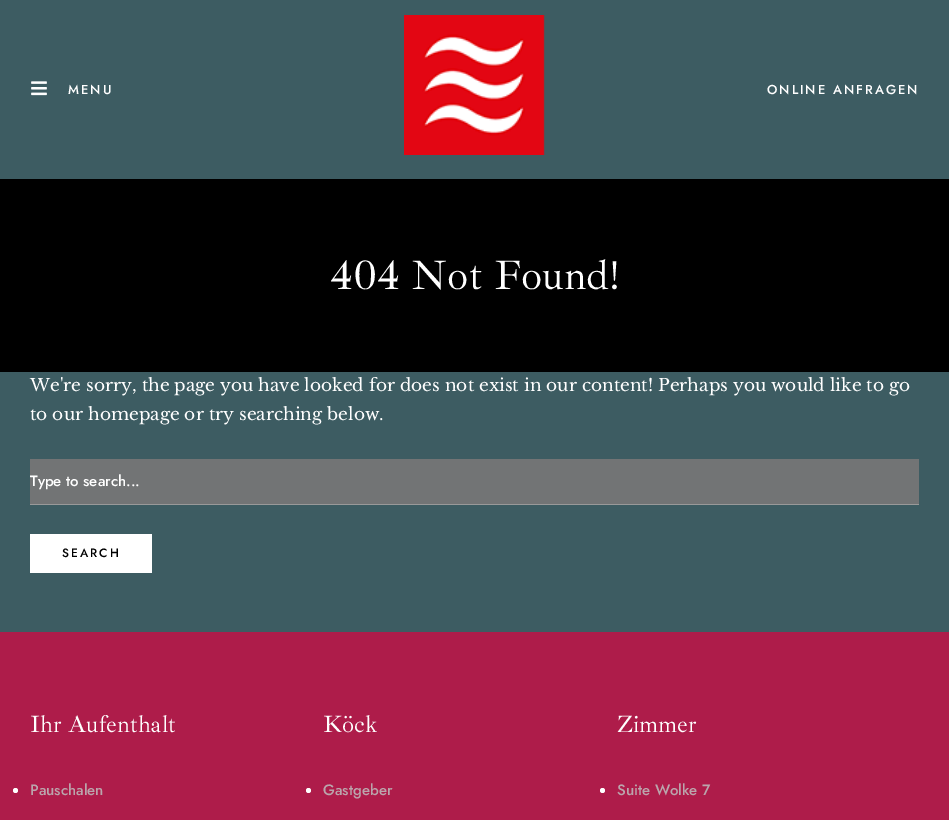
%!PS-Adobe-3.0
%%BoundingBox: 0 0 949 820
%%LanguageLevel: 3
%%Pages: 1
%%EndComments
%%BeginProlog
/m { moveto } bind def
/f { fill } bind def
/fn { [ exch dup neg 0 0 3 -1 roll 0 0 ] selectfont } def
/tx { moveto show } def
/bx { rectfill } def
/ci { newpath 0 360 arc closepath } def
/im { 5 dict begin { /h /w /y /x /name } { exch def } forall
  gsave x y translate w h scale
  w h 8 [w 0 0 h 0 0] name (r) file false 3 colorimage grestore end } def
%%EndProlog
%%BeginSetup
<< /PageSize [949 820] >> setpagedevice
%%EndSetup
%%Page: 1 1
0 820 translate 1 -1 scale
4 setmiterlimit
0.239 0.361 0.384 setrgbcolor
0 0 949 820 bx
(image0.raw) 31 81 16 15 im
/Jost-Medium 13 fn
1 setgray
68 94 m 2 0 (MENU) ashow
(image1.raw) 404 15 141 140 im
767 94 m 2 0 (ONLINE ANFRAGEN) ashow
0 setgray
0 179 949 193 bx
/IbarraRealNova-Regular 42 fn
1 setgray
(404 Not Found!) 330 289 tx
/LibreBaskerville-Regular 17 fn
(We're sorry, the page you have looked for does not exist in our content! Perhaps you would like to go) 30 391 tx
(to our homepage or try searching below.) 30 420 tx
0.447 0.455 0.459 setrgbcolor
30 459 889 45 bx
0.6 setgray
30 504 889 1 bx
/Jost-Medium 15 fn
1 setgray
(Type to search...) 30 486 tx
30 534 122 39 bx
/Jost-Medium 12 fn
0 setgray
62 557 m 2 0 (SEARCH) ashow
0.682 0.11 0.29 setrgbcolor
0 632 949 188 bx
/IbarraRealNova-Regular 24 fn
1 setgray
(Ihr Aufenthalt) 30 732 tx
15.5 790.5 2.5 ci f
/Jost-Medium 15 fn
0.733 0.647 0.675 setrgbcolor
(Pauschalen) 30 795 tx
/IbarraRealNova-Regular 24 fn
1 setgray
(Köck) 323 732 tx
308.5 790.5 2.5 ci f
/Jost-Medium 15 fn
0.733 0.647 0.675 setrgbcolor
(Gastgeber) 323 795 tx
/IbarraRealNova-Regular 24 fn
1 setgray
(Zimmer) 617 732 tx
602.5 790.5 2.5 ci f
/Jost-Medium 15 fn
0.733 0.647 0.675 setrgbcolor
(Suite Wolke 7) 617 795 tx
showpage
%%EOF
